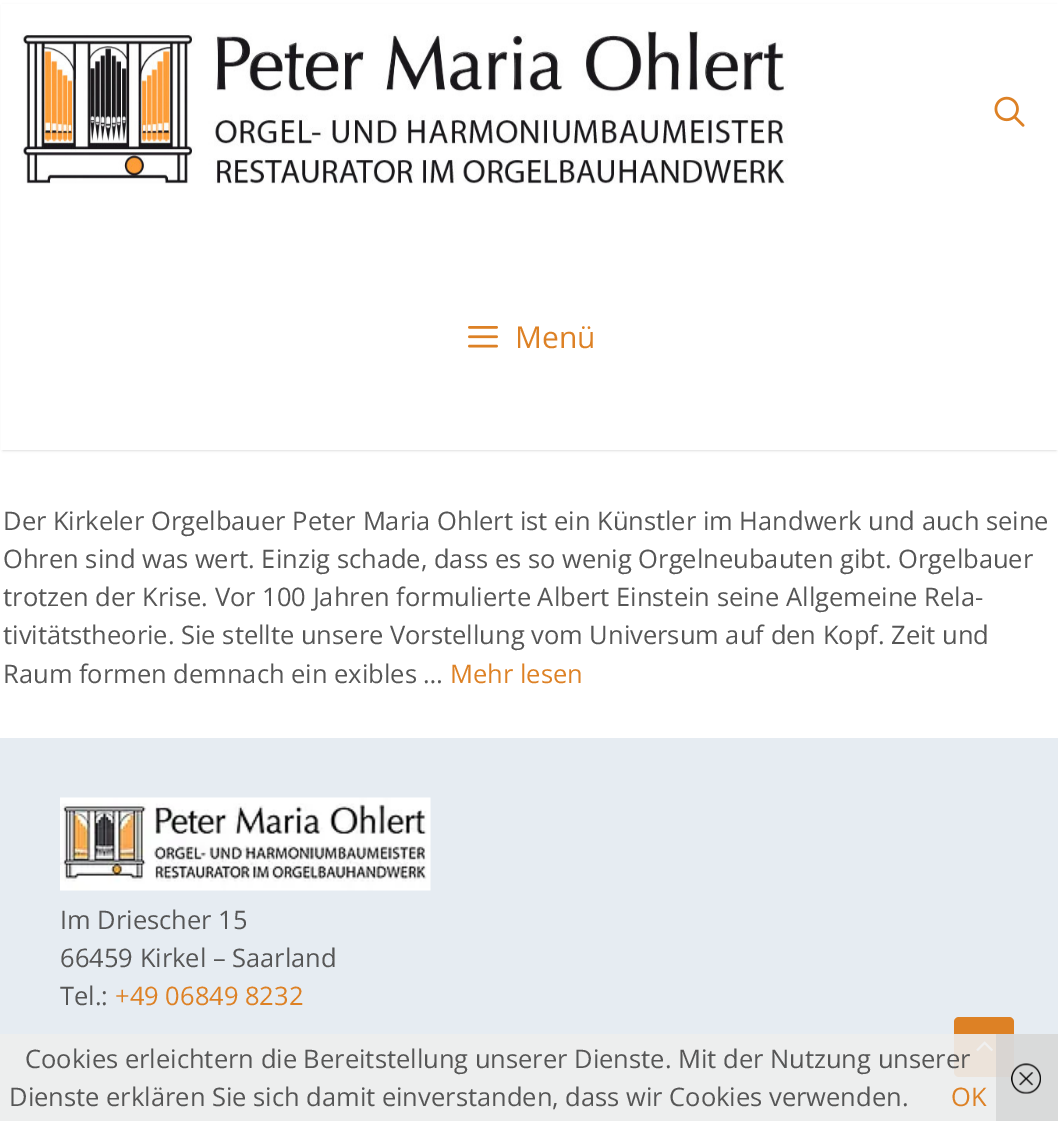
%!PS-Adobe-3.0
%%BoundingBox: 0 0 1058 1121
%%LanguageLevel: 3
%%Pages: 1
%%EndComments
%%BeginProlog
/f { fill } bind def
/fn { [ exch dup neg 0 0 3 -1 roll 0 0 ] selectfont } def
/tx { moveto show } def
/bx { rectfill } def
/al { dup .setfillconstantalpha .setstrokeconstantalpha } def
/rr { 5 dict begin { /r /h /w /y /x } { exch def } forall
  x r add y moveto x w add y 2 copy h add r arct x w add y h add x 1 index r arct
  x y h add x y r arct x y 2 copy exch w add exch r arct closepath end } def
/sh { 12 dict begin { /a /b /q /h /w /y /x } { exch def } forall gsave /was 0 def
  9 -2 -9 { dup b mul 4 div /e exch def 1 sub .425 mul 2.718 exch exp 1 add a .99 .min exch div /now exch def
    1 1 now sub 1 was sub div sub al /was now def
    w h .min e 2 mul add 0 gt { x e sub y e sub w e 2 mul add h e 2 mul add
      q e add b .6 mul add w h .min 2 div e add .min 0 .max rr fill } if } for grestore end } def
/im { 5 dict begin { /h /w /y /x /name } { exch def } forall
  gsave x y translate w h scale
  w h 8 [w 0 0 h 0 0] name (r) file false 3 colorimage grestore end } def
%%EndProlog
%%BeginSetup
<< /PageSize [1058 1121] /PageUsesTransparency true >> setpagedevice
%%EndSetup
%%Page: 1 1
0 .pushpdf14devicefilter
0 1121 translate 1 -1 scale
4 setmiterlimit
1 setgray
0 0 1058 1121 bx
0 setgray
3 6 1053 444 0 1.5 0.2 sh
1 setgray
1 4 1057 446 bx
(image0.raw) 21 30 767 154 im
(image1.raw) 994 96 31 31 im
(image2.raw) 468 326 30 22 im
/OpenSans-Regular 30 fn
0.867 0.506 0.145 setrgbcolor
(Menü) 515 348 tx
/OpenSans-Regular 25.5 fn
0.337 setgray
(Der Kirkeler Orgelbauer Peter Maria Ohlert ist ein Künstler im Handwerk und auch seine) 3 530 tx
(Ohren sind was wert. Einzig schade, dass es so wenig Orgelneubauten gibt. Orgelbauer) 3 568 tx
(trotzen der Krise. Vor 100 Jahren formulierte Albert Einstein seine Allgemeine Rela-) 3 606 tx
(tivitätstheorie. Sie stellte unsere Vorstellung vom Universum auf den Kopf. Zeit und) 3 644 tx
(Raum formen demnach ein exibles …) 3 683 tx
0.867 0.506 0.145 setrgbcolor
(Mehr lesen) 450 683 tx
0.902 0.925 0.949 setrgbcolor
0 738 1058 383 bx
(image3.raw) 60 797 371 94 im
0.337 setgray
(Im Driescher 15) 60 929 tx
(66459 Kirkel – Saarland) 60 967 tx
(Tel.:) 60 1005 tx
0.867 0.506 0.145 setrgbcolor
(+49 06849 8232) 115 1005 tx
954 1017 60 60 5 rr f
(image4.raw) 976 1041 17 11 im
0.9 al
0.933 setgray
0 1034 1058 87 bx
1 al
0.337 setgray
(Cookies erleichtern die Bereitstellung unserer Dienste. Mit der Nutzung unserer) 25 1068 tx
(Dienste erklären Sie sich damit einverstanden, dass wir Cookies verwenden.) 9 1106 tx
0.867 0.506 0.145 setrgbcolor
(OK) 951 1106 tx
0.6 al
0.8 setgray
996 1034 62 87 bx
1 al
(image5.raw) 1011 1063 30 31 im
.poppdf14devicefilter showpage
%%EOF
